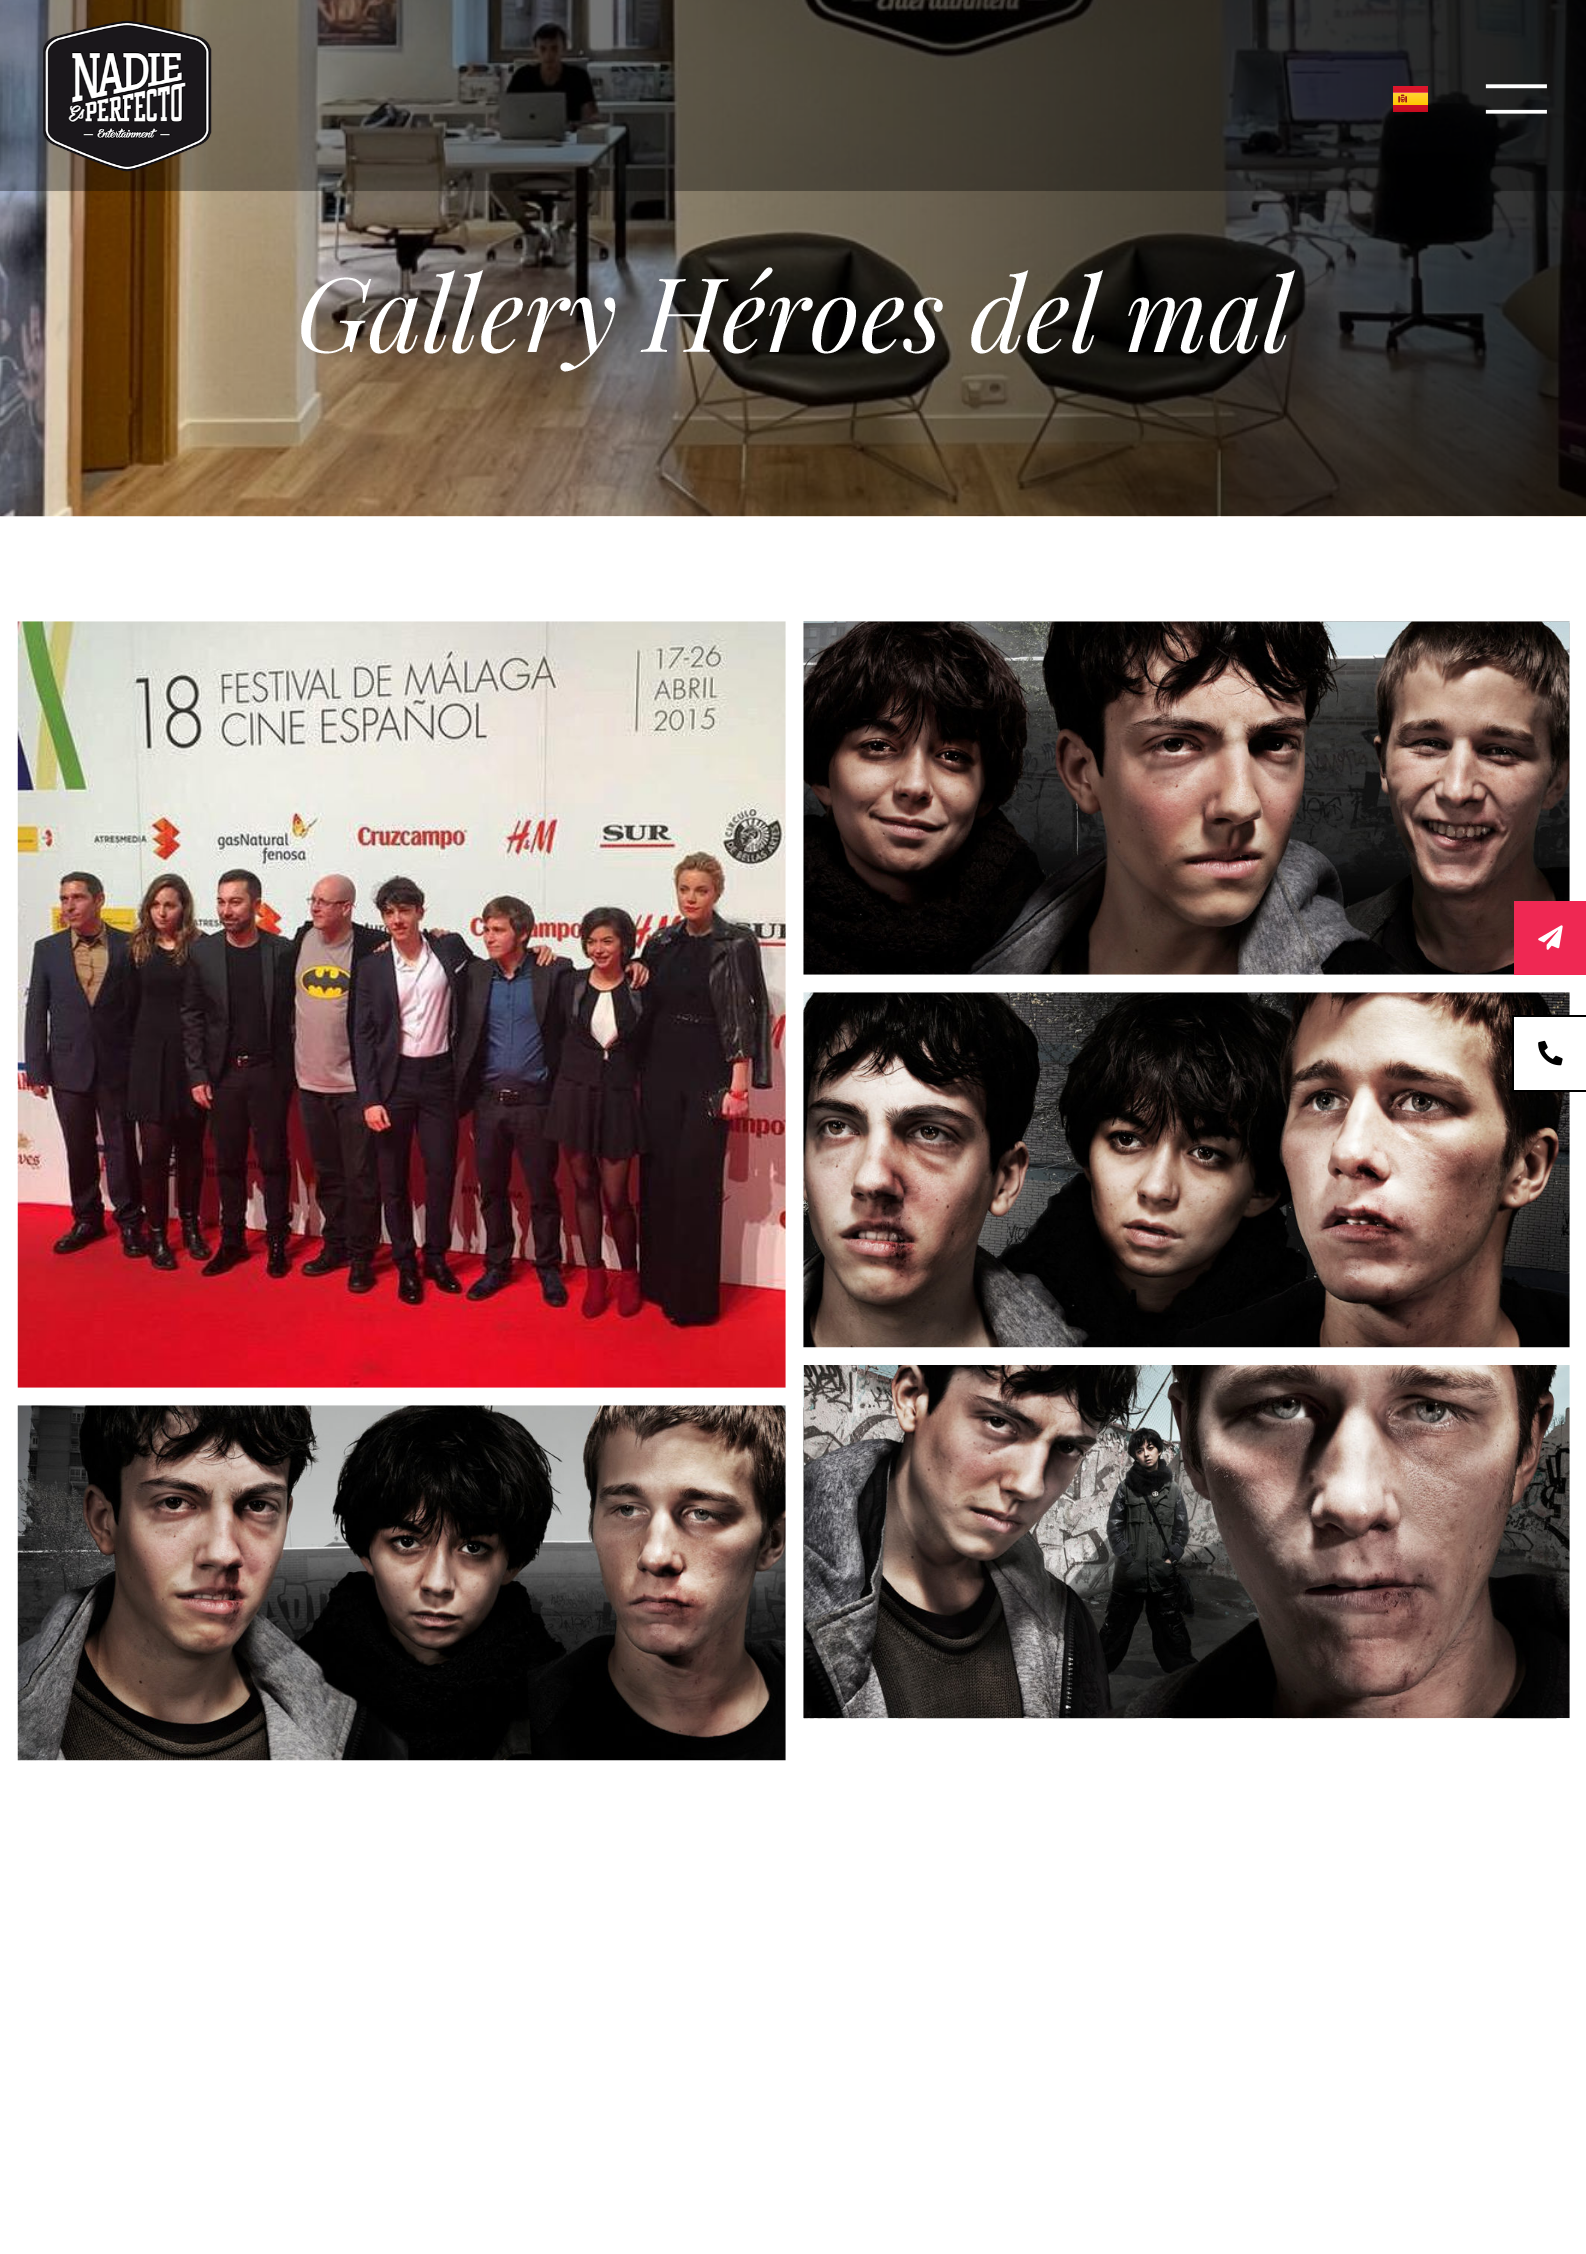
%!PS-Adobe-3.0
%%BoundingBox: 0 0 1586 2254
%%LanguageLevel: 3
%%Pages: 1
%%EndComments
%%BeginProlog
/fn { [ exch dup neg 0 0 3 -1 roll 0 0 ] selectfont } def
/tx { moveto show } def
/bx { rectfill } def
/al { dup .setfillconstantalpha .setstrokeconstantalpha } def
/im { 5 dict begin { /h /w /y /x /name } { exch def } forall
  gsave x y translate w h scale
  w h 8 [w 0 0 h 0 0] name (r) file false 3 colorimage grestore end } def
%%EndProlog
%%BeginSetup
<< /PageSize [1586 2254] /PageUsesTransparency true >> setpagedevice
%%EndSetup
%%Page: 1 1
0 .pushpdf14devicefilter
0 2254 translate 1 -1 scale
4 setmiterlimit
1 setgray
0 0 1586 2254 bx
(image3.raw) 0 0 1586 517 im
0.35 al
0 setgray
0 0 1586 191 bx
1 al
(image0.raw) 43 20 169 152 im
(image1.raw) 1393 86 35 26 im
(image2.raw) 1485 84 62 30 im
/PlayfairDisplay-Italic 103.25 fn
1 setgray
(Gallery Héroes del mal) 296 352 tx
(image4.raw) 17 621 769 767 im
(image5.raw) 803 621 767 354 im
(image6.raw) 803 992 767 356 im
(image7.raw) 17 1405 769 356 im
(image8.raw) 803 1365 767 354 im
0.937 0.157 0.325 setrgbcolor
1514 901 72 74 bx
(image9.raw) 1538 925 25 25 im
1 setgray
1514 1017 56 73 bx
0 setgray
1512 1015 74 2 bx
1512 1090 74 2 bx
1512 1015 2 77 bx
(image10.raw) 1538 1040 25 26 im
.poppdf14devicefilter showpage
%%EOF
